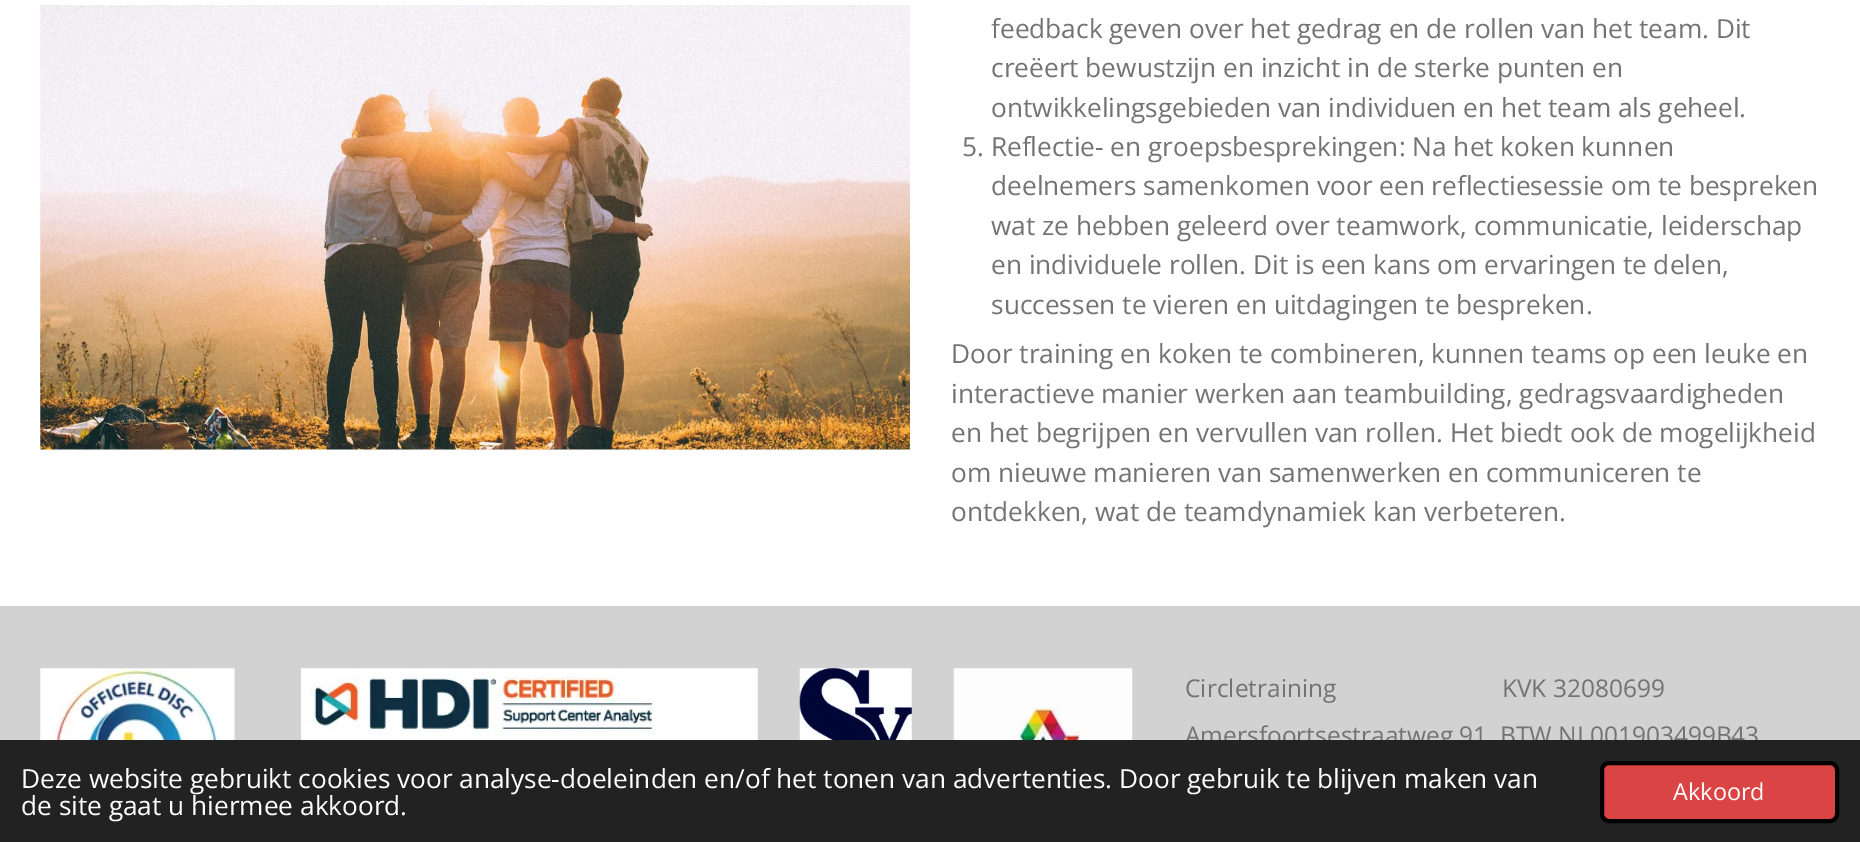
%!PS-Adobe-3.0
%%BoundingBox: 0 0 1860 842
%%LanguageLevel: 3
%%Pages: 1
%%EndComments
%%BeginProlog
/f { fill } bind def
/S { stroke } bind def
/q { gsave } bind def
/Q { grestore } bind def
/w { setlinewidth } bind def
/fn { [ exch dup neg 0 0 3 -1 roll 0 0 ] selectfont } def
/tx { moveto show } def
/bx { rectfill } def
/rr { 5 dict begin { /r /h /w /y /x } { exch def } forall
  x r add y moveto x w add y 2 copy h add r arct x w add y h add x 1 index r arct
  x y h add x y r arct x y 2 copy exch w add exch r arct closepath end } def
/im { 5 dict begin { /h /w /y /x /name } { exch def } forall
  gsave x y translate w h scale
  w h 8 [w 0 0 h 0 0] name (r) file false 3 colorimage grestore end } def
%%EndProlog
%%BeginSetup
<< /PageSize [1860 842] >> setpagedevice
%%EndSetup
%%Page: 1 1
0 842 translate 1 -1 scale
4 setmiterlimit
1 setgray
0 0 1860 842 bx
(image0.raw) 40 5 870 445 im
/OpenSans-Regular 26.25 fn
0.451 setgray
(feedback geven over het gedrag en de rollen van het team. Dit) 991 38 tx
(creëert bewustzijn en inzicht in de sterke punten en) 991 77 tx
(ontwikkelingsgebieden van individuen en het team als geheel.) 991 117 tx
(5. Reflectie- en groepsbesprekingen: Na het koken kunnen) 962 156 tx
(deelnemers samenkomen voor een reflectiesessie om te bespreken) 991 195 tx
(wat ze hebben geleerd over teamwork, communicatie, leiderschap) 991 235 tx
(en individuele rollen. Dit is een kans om ervaringen te delen,) 991 274 tx
(successen te vieren en uitdagingen te bespreken.) 991 314 tx
(Door training en koken te combineren, kunnen teams op een leuke en) 951 363 tx
(interactieve manier werken aan teambuilding, gedragsvaardigheden) 951 403 tx
(en het begrijpen en vervullen van rollen. Het biedt ook de mogelijkheid) 951 442 tx
(om nieuwe manieren van samenwerken en communiceren te) 951 482 tx
(ontdekken, wat de teamdynamiek kan verbeteren.) 951 521 tx
0.824 setgray
0 606 1860 134 bx
(image1.raw) 40 668 195 72 im
(image2.raw) 301 668 457 72 im
(image3.raw) 799 668 113 72 im
(image4.raw) 953 668 180 72 im
/OpenSans-Regular 24.5 fn
0.451 setgray
(Circletraining                          KVK 32080699) 1185 697 tx
(Amersfoortsestraatweg 91  BTW NL001903499B43) 1185 744 tx
0.133 setgray
0 740 1860 102 bx
/OpenSans-Regular 26.25 fn
1 setgray
(Deze website gebruikt cookies voor analyse-doeleinden en/of het tonen van advertenties. Door gebruik te blijven maken van) 21 788 tx
(de site gaat u hiermee akkoord.) 21 815 tx
0.855 0.267 0.267 setrgbcolor
1602 763 235 58 7 rr q f Q
0 setgray
4 w
S
/OpenSans-Regular 23.5 fn
1 setgray
(Akkoord) 1673 800 tx
showpage
%%EOF
